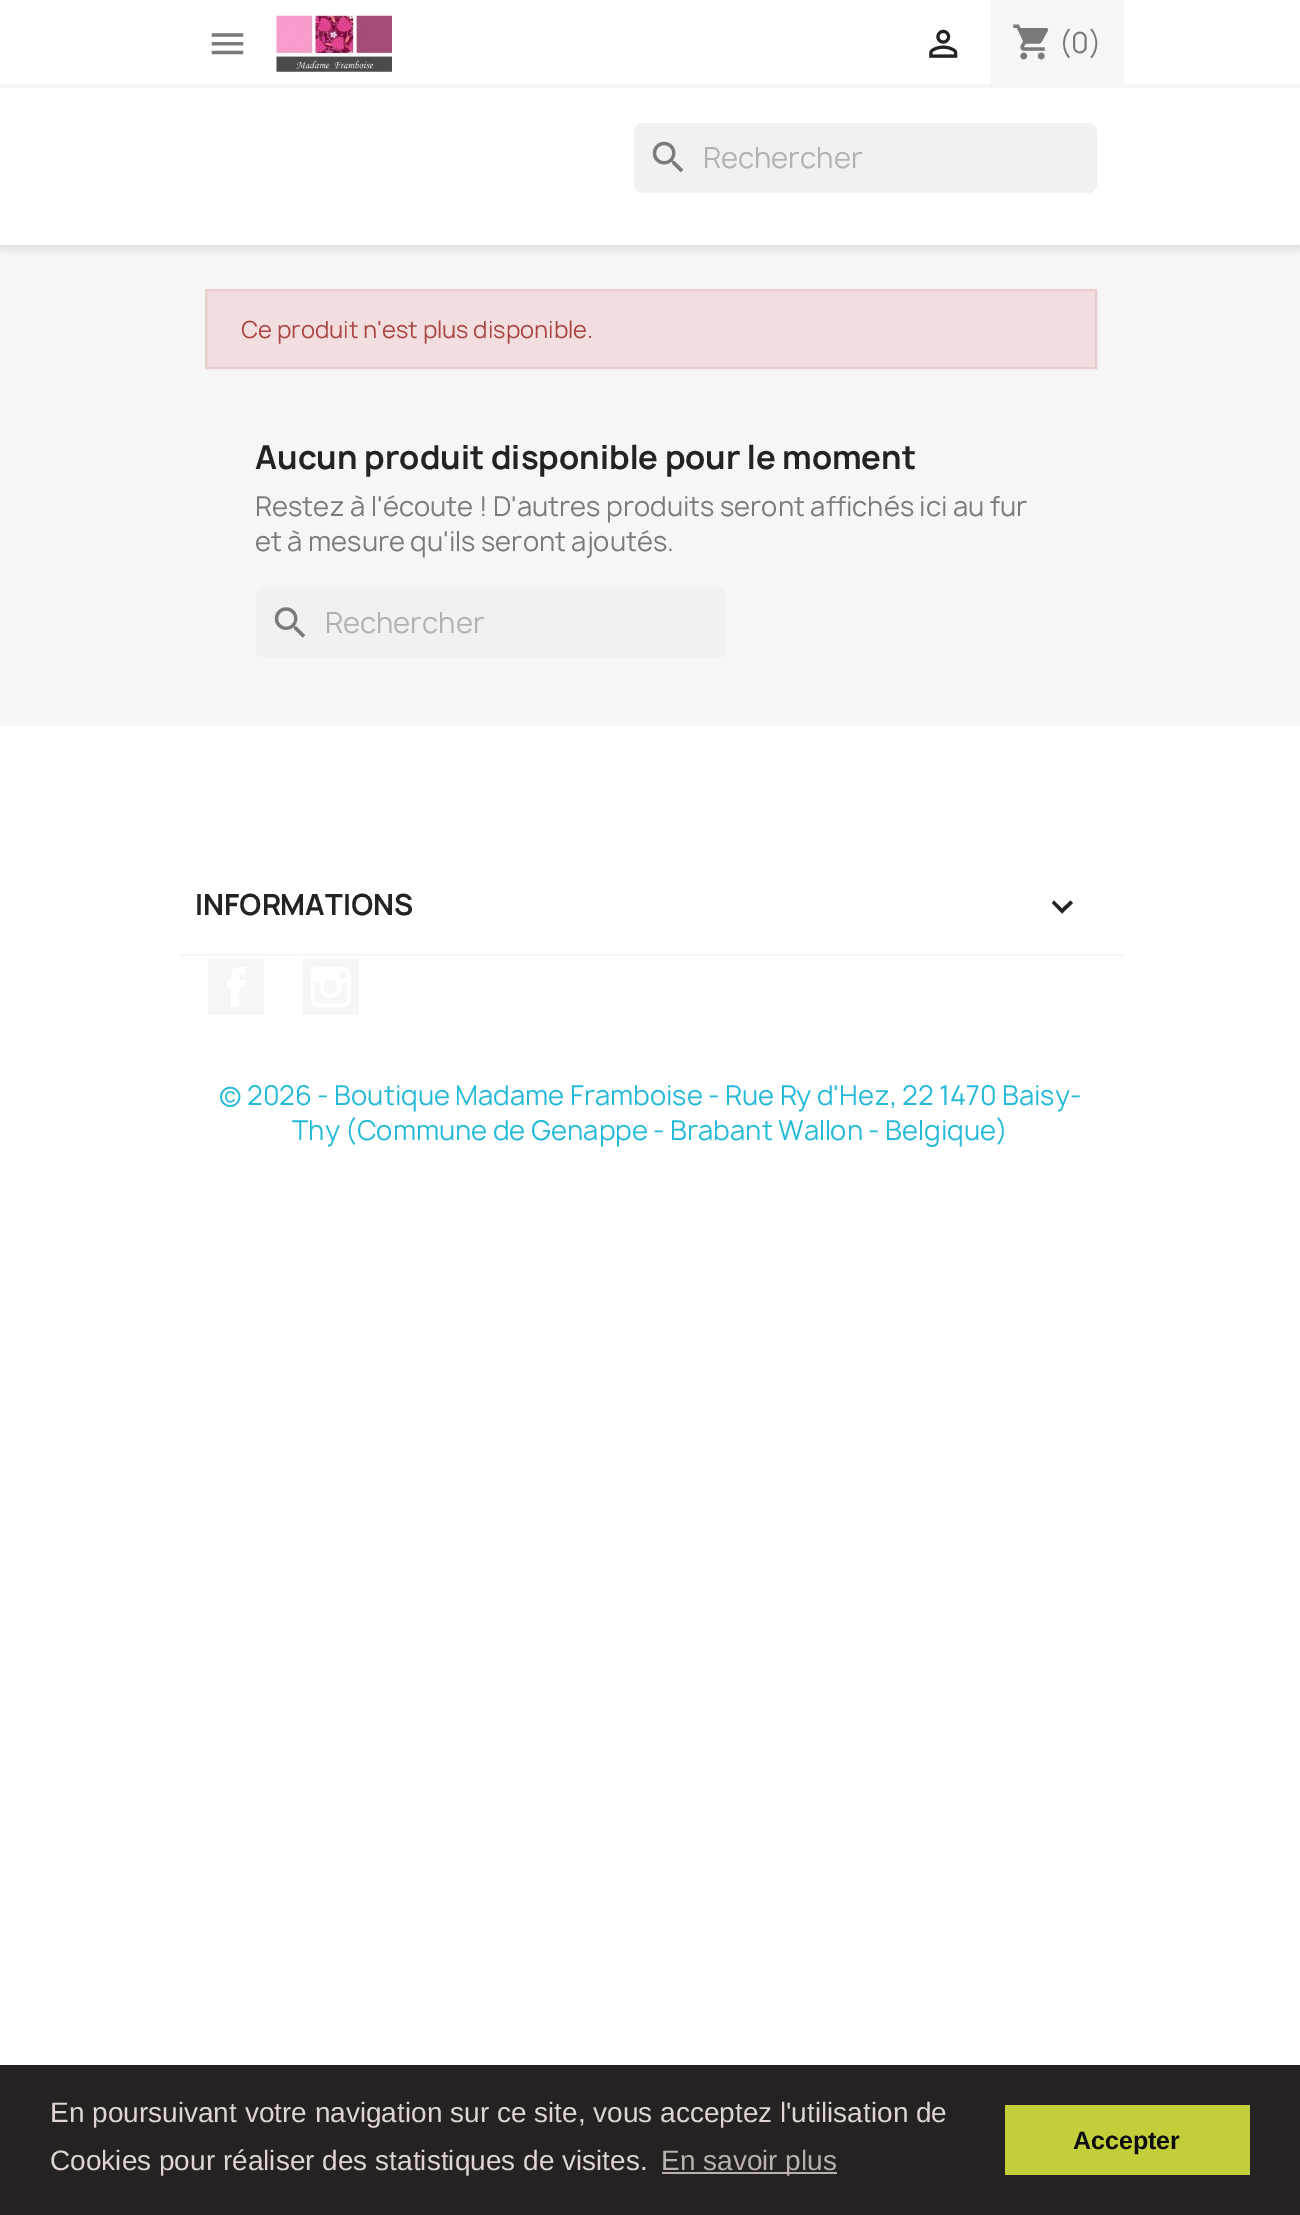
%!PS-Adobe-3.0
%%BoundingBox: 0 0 1300 2215
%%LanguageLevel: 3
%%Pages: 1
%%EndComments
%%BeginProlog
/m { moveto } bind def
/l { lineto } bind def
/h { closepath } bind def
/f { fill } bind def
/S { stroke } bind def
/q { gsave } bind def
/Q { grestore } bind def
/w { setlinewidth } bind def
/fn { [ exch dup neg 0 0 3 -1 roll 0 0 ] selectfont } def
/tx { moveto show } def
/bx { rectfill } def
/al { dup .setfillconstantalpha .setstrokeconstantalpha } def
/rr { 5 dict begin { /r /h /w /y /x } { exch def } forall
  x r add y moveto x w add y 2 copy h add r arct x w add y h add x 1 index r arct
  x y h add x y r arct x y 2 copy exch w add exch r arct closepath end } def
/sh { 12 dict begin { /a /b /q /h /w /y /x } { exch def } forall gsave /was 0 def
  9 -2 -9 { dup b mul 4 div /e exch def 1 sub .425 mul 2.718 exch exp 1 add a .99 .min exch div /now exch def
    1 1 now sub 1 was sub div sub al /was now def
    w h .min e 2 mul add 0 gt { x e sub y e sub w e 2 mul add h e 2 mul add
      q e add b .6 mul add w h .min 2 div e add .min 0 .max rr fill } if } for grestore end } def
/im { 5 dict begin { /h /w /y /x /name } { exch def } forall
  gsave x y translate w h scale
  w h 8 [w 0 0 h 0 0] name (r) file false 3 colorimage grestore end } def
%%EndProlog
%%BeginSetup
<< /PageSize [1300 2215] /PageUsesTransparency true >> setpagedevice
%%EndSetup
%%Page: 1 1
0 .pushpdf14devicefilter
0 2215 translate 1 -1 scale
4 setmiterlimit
1 setgray
0 0 1300 2215 bx
0.965 setgray
0 245 1300 481 bx
q
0 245 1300 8 rectclip
0 setgray
0 4 1300 245 0 4.5 0.11 sh
Q
0 84 1300 4 bx
(image0.raw) 211 33 33 22 im
(image1.raw) 276 15 116 57 im
(image2.raw) 929 29 29 29 im
991 0 133 84 bx
(image3.raw) 1013 24 36 36 im
/Manrope-Regular 28 fn
0.478 setgray
(\(0\)) 1059 53 tx
0.945 setgray
634 123 463 70 9 rr f
(image4.raw) 652 141 32 32 im
0.694 setgray
(Rechercher) 703 168 tx
0.949 0.871 0.871 setrgbcolor
206 290 m 1096 290 l 1096 368 l 206 368 l h q f Q
0.922 0.8 0.8 setrgbcolor
2 w
S
/Manrope-Regular 22.75 fn
0.663 0.267 0.259 setrgbcolor
(Ce produit n'est plus disponible.) 241 338 tx
/Manrope-Bold 31.5 fn
0.137 setgray
(Aucun produit disponible pour le moment) 255 469 tx
/Manrope-Regular 26.25 fn
0.478 setgray
(Restez à l'écoute ! D'autres produits seront affichés ici au fur) 255 516 tx
(et à mesure qu'ils seront ajoutés.) 255 551 tx
0.945 setgray
256 588 470 70 9 rr f
(image5.raw) 274 607 32 31 im
/Manrope-Regular 28 fn
0.694 setgray
(Rechercher) 325 633 tx
0.965 setgray
179 954 945 2 bx
/Manrope-Bold 28 fn
0.137 setgray
(INFORMATIONS) 195 915 tx
1054 900.5 m 1062 908.5 l 1070.5 900.5 l 1073 903 l 1062 913.5 l 1052 903 l h f
0.965 setgray
208 959 56 56 bx
(image6.raw) 227 967 19 40 im
303 959 56 56 bx
(image7.raw) 311 967 40 40 im
/Manrope-Regular 26.25 fn
0.141 0.725 0.843 setrgbcolor
(© 2026 - Boutique Madame Framboise - Rue Ry d'Hez, 22 1470 Baisy-) 219 1105 tx
(Thy \(Commune de Genappe - Brabant Wallon - Belgique\)) 292 1140 tx
0.149 0.133 0.133 setrgbcolor
0 2065 1300 150 bx
/LiberationSans-Regular 28 fn
0.878 0.831 0.831 setrgbcolor
(En poursuivant votre navigation sur ce site, vous acceptez l'utilisation de) 50 2122 tx
(Cookies pour réaliser des statistiques de visites.) 50 2170 tx
0.733 0.69 0.69 setrgbcolor
662 2172 175 2 bx
(En savoir plus) 661 2170 tx
0.765 0.812 0.227 setrgbcolor
1005 2105 245 70 bx
/LiberationSans-Bold 25 fn
0.051 0.043 0.043 setrgbcolor
(Accepter) 1073 2149 tx
.poppdf14devicefilter showpage
%%EOF
